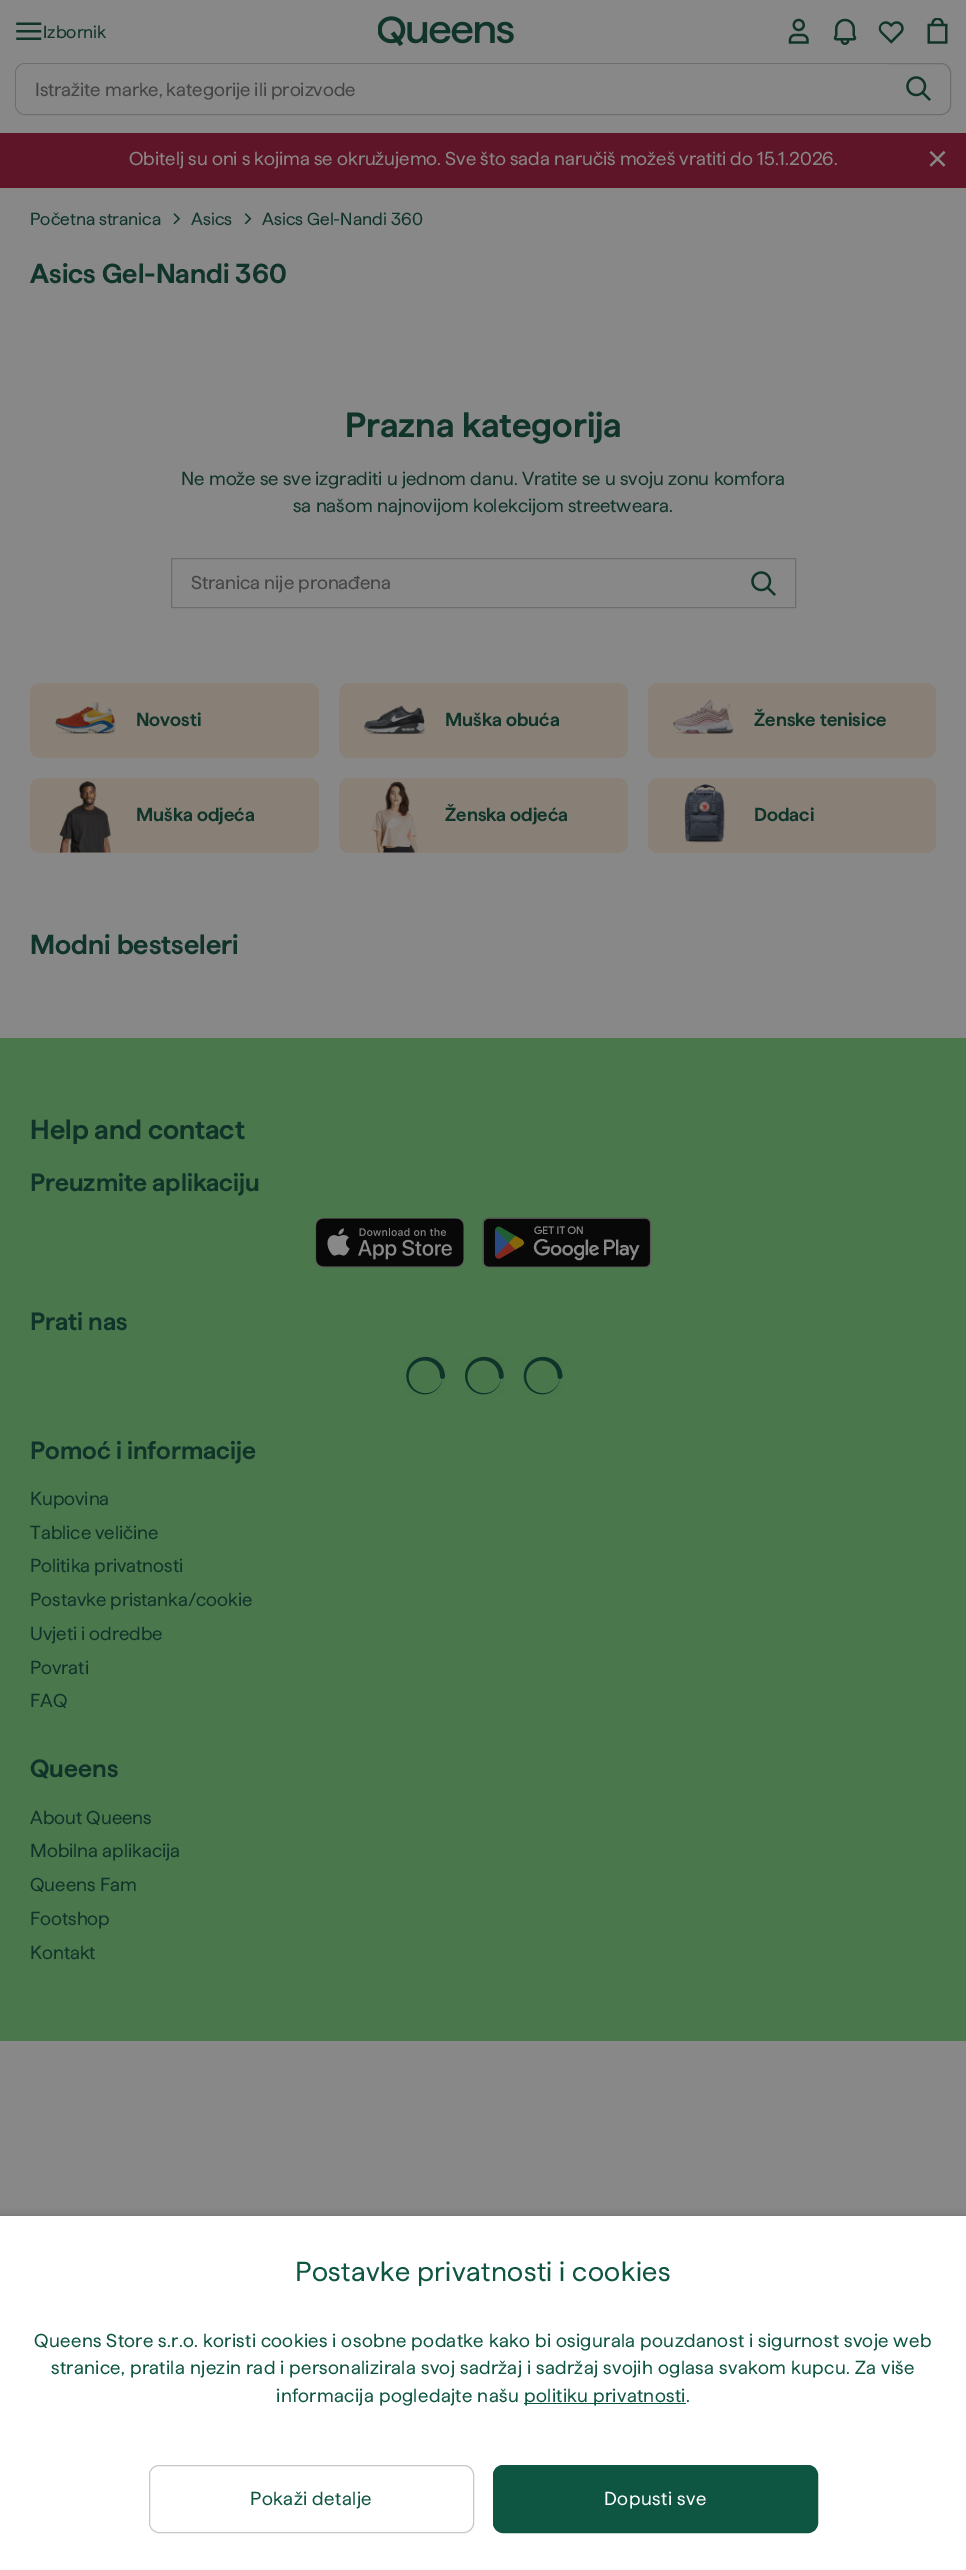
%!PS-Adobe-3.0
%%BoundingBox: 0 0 966 2570
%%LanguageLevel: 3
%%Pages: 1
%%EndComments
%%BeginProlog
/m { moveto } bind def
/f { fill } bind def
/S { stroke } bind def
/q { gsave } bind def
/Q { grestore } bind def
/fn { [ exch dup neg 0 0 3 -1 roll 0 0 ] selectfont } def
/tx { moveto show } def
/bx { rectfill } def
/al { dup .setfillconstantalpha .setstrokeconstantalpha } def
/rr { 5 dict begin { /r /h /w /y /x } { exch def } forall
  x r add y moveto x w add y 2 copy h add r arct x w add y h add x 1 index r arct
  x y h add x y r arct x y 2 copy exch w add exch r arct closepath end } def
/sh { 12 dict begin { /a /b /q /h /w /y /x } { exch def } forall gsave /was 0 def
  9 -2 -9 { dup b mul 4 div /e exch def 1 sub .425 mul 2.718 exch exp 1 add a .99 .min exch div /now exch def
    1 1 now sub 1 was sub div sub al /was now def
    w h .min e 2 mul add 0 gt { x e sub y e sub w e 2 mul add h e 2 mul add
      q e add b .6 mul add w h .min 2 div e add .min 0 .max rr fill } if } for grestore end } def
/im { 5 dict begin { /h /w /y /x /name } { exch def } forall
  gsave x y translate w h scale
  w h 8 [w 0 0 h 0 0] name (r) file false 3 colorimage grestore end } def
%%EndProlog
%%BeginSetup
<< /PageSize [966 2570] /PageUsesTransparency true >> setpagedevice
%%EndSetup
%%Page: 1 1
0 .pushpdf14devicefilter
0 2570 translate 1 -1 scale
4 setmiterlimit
0.533 setgray
0 0 966 2570 bx
(image0.raw) 16 22 26 18 im
/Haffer-Regular 17.5 fn
0.063 0.2 0.165 setrgbcolor
(Izbornik) 43 38 tx
(image1.raw) 378 16 136 30 im
(image2.raw) 788 18 21 26 im
(image3.raw) 833 18 24 27 im
(image4.raw) 878 21 26 23 im
(image5.raw) 927 18 21 26 im
0.427 setgray
15.5 63.5 935 51 9.5 rr S
0.533 setgray
16 64 878 50 10 rr f
/Haffer-Regular 18.75 fn
0.263 setgray
(Istražite marke, kategorije ili proizvode) 35 96 tx
(image6.raw) 906 76 25 25 im
0.373 0.082 0.157 setrgbcolor
0 133 966 55 bx
0.533 setgray
(Obitelj su oni s kojima se okružujemo. Sve što sada naručiš možeš vratiti do 15.1.2026.) 129 165 tx
(image7.raw) 929 150 17 17 im
/Haffer-Regular 17.5 fn
0.063 0.2 0.165 setrgbcolor
(Početna stranica) 30 225 tx
(image8.raw) 173 213 8 12 im
(Asics) 191 225 tx
(image9.raw) 244 213 8 12 im
(Asics Gel-Nandi 360) 262 225 tx
/Haffer-SemiBold 27.5 fn
(Asics Gel-Nandi 360) 30 283 tx
/Haffer-SemiBold 35 fn
(Prazna kategorija) 345 437 tx
/Haffer-Regular 18.75 fn
(Ne može se sve izgraditi u jednom danu. Vratite se u svoju zonu komfora) 181 485 tx
(sa našom najnovijom kolekcijom streetweara.) 293 512 tx
0.427 setgray
171.5 558.5 624 49 rectstroke
0.263 setgray
(Stranica nije pronađena) 191 589 tx
(image6.raw) 751 571 25 25 im
0.533 0.502 0.463 setrgbcolor
30 683 289 75 10 rr f
(image10.raw) 55 701 61 33 im
/Haffer-SemiBold 18.75 fn
0.063 0.2 0.165 setrgbcolor
(Novosti) 136 726 tx
0.533 0.502 0.463 setrgbcolor
339 683 289 75 10 rr f
(image11.raw) 364 705 62 30 im
0.063 0.2 0.165 setrgbcolor
(Muška obuća) 445 726 tx
0.533 0.502 0.463 setrgbcolor
648 683 288 75 10 rr f
(image12.raw) 672 699 62 36 im
0.063 0.2 0.165 setrgbcolor
(Ženske tenisice) 754 726 tx
0.533 0.502 0.463 setrgbcolor
30 778 289 75 10 rr f
(image13.raw) 59 781 52 72 im
0.063 0.2 0.165 setrgbcolor
(Muška odjeća) 136 821 tx
0.533 0.502 0.463 setrgbcolor
339 778 289 75 10 rr f
(image14.raw) 371 781 47 72 im
0.063 0.2 0.165 setrgbcolor
(Ženska odjeća) 445 821 tx
0.533 0.502 0.463 setrgbcolor
648 778 288 75 10 rr f
(image15.raw) 684 783 41 60 im
0.063 0.2 0.165 setrgbcolor
(Dodaci) 754 821 tx
/Haffer-SemiBold 27.5 fn
(Modni bestseleri) 30 954 tx
0.294 0.467 0.298 setrgbcolor
0 1038 966 1003 bx
0.063 0.2 0.165 setrgbcolor
(Help and contact) 30 1139 tx
/Haffer-SemiBold 25 fn
(Preuzmite aplikaciju) 30 1191 tx
(image16.raw) 315 1218 149 50 im
(image17.raw) 482 1217 170 51 im
(Prati nas) 30 1330 tx
(image18.raw) 406 1356 39 39 im
(image19.raw) 465 1356 39 39 im
(image20.raw) 523 1356 40 39 im
(Pomoć i informacije) 30 1459 tx
/Haffer-Regular 18.75 fn
(Kupovina) 30 1505 tx
(Tablice veličine) 30 1539 tx
(Politika privatnosti) 30 1572 tx
(Postavke pristanka/cookie) 30 1606 tx
(Uvjeti i odredbe) 30 1640 tx
(Povrati) 30 1674 tx
(FAQ) 30 1707 tx
/Haffer-SemiBold 25 fn
(Queens) 30 1777 tx
/Haffer-Regular 18.75 fn
(About Queens) 30 1824 tx
(Mobilna aplikacija) 30 1857 tx
(Queens Fam) 30 1891 tx
(Footshop) 30 1925 tx
(Kontakt) 30 1959 tx
0 setgray
1 2219 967 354 0 5 0.35 sh
1 setgray
0 2216 966 354 bx
/Haffer-Regular 27.5 fn
0.055 0.333 0.259 setrgbcolor
295 2281 m 0.5 0 (Postavke privatnosti i cookies) ashow
/Haffer-Regular 18.75 fn
34 2347 m 0.38 0 (Queens Store s.r.o. koristi cookies i osobne podatke kako bi osigurala pouzdanost i sigurnost svoje web) ashow
51 2374 m 0.38 0 (stranice, pratila njezin rad i personalizirala svoj sadržaj i sadržaj svojih oglasa svakom kupcu. Za više) ashow
276 2402 m 0.38 0 (informacija pogledajte našu) ashow
524 2403 162 1 bx
524 2402 m 0.38 0 (politiku privatnosti.) ashow
0.784 setgray
149.5 2465.5 324 67 9.5 rr S
0.055 0.333 0.259 setrgbcolor
250 2505 m 0.5 0 (Pokaži detalje) ashow
493.5 2465.5 324 67 9.5 rr q f Q
S
1 setgray
604 2505 m 0.5 0 (Dopusti sve) ashow
.poppdf14devicefilter showpage
%%EOF
